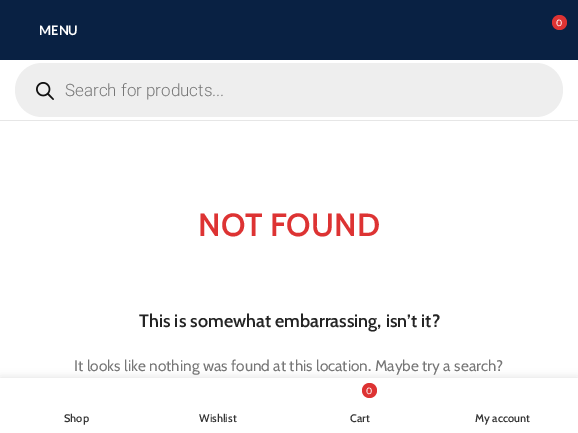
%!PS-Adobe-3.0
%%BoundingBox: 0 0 578 433
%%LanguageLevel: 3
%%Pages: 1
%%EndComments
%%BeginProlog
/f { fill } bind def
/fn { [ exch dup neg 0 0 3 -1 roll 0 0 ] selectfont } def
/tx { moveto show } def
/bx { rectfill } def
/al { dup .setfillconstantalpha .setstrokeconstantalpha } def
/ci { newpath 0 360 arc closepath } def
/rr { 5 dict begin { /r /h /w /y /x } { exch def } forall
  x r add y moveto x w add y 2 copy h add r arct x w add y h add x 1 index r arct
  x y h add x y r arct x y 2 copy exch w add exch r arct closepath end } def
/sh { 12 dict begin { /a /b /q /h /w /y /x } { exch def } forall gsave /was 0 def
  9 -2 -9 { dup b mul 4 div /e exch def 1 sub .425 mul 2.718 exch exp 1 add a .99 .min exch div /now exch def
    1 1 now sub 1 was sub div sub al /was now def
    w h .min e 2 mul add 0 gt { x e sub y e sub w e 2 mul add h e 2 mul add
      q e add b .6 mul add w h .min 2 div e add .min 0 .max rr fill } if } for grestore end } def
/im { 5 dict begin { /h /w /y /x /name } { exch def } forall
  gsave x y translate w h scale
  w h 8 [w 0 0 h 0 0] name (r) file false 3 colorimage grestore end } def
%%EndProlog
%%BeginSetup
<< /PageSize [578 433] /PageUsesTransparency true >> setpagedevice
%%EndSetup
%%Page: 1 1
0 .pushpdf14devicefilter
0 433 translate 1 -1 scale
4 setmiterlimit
1 setgray
0 0 578 433 bx
0.035 0.129 0.263 setrgbcolor
0 0 578 60 bx
0.867 0.2 0.2 setrgbcolor
559.5 22.5 7.5 ci f
/Cabin-Regular 9 fn
1 setgray
(0) 556 26 tx
/Lato-Bold 13 fn
(MENU) 39 35 tx
0.902 setgray
0 120 578 1 bx
0.933 setgray
15 63 548 54 27 rr f
(image0.raw) 36 82 18 18 im
/Roboto-Light 17 fn
0.463 setgray
(Search for products...) 65 96 tx
/Cabin-SemiBold 32 fn
0.867 0.2 0.2 setrgbcolor
(NOT FOUND) 198 236 tx
/Cabin-SemiBold 18 fn
0.141 setgray
(This is somewhat embarrassing, isn’t it?) 139 327 tx
/Cabin-Regular 15.4 fn
0.463 setgray
(It looks like nothing was found at this location. Maybe try a search?) 74 371 tx
0 setgray
0 378 578 55 0 4.5 0.12 sh
1 setgray
0 378 578 55 bx
/Cabin-SemiBold 11 fn
0.2 setgray
(Shop) 64 422 tx
(Wishlist) 199 422 tx
0.867 0.2 0.2 setrgbcolor
369.5 390.5 7.5 ci f
/Cabin-Regular 9 fn
1 setgray
(0) 366 394 tx
/Cabin-SemiBold 11 fn
0.2 setgray
(Cart) 350 422 tx
(My account) 475 422 tx
.poppdf14devicefilter showpage
%%EOF
